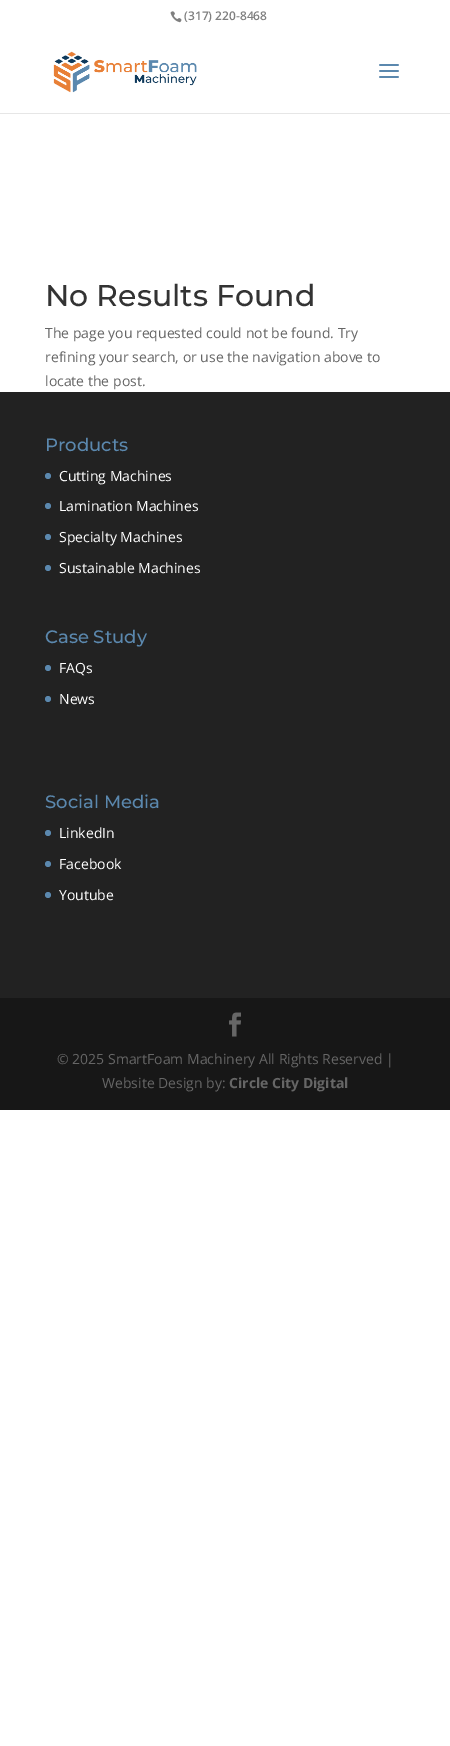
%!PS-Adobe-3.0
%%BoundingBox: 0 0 450 1746
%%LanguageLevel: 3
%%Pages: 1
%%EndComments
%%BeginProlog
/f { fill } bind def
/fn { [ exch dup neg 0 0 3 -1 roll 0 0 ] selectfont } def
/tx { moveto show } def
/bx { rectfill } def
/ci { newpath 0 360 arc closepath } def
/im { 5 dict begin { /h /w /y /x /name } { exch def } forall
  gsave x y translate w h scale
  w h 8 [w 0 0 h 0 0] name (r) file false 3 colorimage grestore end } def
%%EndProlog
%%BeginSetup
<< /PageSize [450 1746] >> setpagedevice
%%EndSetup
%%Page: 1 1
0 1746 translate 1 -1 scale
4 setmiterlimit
1 setgray
0 0 450 1746 bx
(image0.raw) 170 11 12 12 im
/OpenSans-SemiBold 12 fn
0.502 setgray
(\(317\) 220-8468) 184 20 tx
0.902 setgray
0 113 450 1 bx
(image1.raw) 53 51 144 42 im
(image2.raw) 379 64 20 14 im
/Montserrat-Thin 30 fn
0.2 setgray
(No Results Found) 45 306 tx
/OpenSans-Regular 14 fn
0.4 setgray
(The page you requested could not be found. Try) 45 338 tx
(refining your search, or use the navigation above to) 45 362 tx
(locate the post.) 45 386 tx
0.133 setgray
0 392 450 606 bx
/Montserrat-Thin 18 fn
0.357 0.533 0.682 setrgbcolor
(Products) 45 451 tx
48 476 3 ci f
/OpenSans-Regular 14 fn
1 setgray
(Cutting Machines) 59 481 tx
0.357 0.533 0.682 setrgbcolor
48 506 3 ci f
1 setgray
(Lamination Machines) 59 511 tx
0.357 0.533 0.682 setrgbcolor
48 537 3 ci f
1 setgray
(Specialty Machines) 59 542 tx
0.357 0.533 0.682 setrgbcolor
48 568 3 ci f
1 setgray
(Sustainable Machines) 59 573 tx
/Montserrat-Thin 18 fn
0.357 0.533 0.682 setrgbcolor
(Case Study) 45 643 tx
48 668 3 ci f
/OpenSans-Regular 14 fn
1 setgray
(FAQs) 59 673 tx
0.357 0.533 0.682 setrgbcolor
48 699 3 ci f
1 setgray
(News) 59 704 tx
/Montserrat-Thin 18 fn
0.357 0.533 0.682 setrgbcolor
(Social Media) 45 808 tx
48 833 3 ci f
/OpenSans-Regular 14 fn
1 setgray
(LinkedIn) 59 838 tx
0.357 0.533 0.682 setrgbcolor
48 864 3 ci f
1 setgray
(Facebook) 59 869 tx
0.357 0.533 0.682 setrgbcolor
48 895 3 ci f
1 setgray
(Youtube) 59 900 tx
0.09 setgray
0 998 450 112 bx
(image3.raw) 229 1012 12 25 im
0.4 setgray
(© 2025 SmartFoam Machinery All Rights Reserved |) 57 1064 tx
(Website Design by:) 102 1088 tx
/OpenSans-Bold 14 fn
(Circle City Digital) 229 1088 tx
showpage
%%EOF
